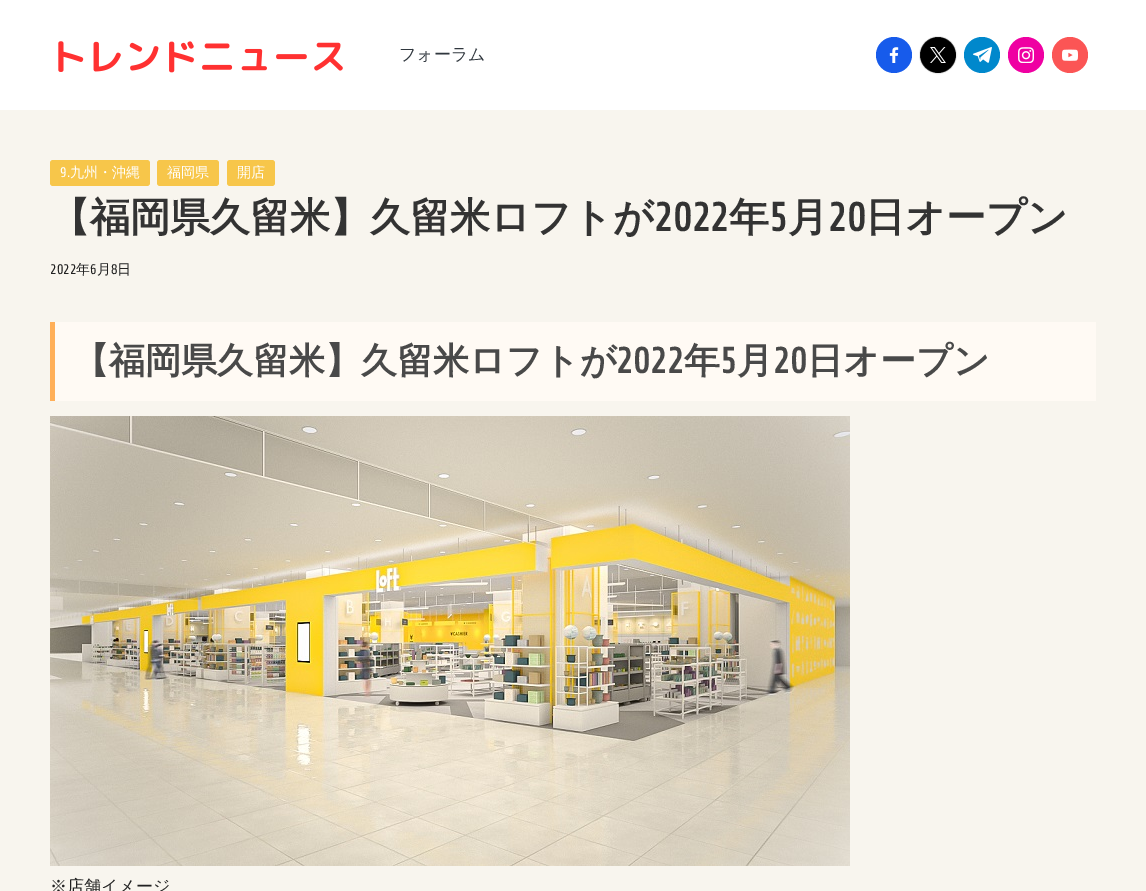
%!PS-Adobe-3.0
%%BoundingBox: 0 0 1146 891
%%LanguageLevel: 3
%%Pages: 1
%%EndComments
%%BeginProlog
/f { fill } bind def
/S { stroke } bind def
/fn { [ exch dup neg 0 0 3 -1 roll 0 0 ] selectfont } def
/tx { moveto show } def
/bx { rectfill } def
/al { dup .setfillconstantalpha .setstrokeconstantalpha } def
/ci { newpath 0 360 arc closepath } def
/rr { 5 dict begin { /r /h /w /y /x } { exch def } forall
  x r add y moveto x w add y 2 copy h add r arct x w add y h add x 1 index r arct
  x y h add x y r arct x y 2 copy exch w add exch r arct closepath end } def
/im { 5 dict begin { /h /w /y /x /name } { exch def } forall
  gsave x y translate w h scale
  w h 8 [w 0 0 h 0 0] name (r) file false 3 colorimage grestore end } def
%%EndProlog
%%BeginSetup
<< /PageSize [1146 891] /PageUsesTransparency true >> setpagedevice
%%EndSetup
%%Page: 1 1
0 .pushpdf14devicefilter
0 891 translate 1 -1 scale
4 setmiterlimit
0.973 0.961 0.933 setrgbcolor
0 0 1146 891 bx
1 setgray
0 0 1146 110 bx
(image0.raw) 58 41 285 32 im
/WenQuanYiZenHei-Medium 17 fn
0.188 0.216 0.243 setrgbcolor
(フォーラム) 399 60 tx
0.09 0.357 0.922 setrgbcolor
894 55 18 ci f
(image1.raw) 889 47 10 16 im
0 setgray
938 55 18 ci f
0.3 al
0.745 setgray
938 55 18.5 ci S
1 al
(image2.raw) 930 47 16 16 im
0 0.533 0.8 setrgbcolor
982 55 18 ci f
(image3.raw) 973 47 19 16 im
0.937 0 0.635 setrgbcolor
1026 55 18 ci f
(image4.raw) 1018 47 16 16 im
0.984 0.333 0.333 setrgbcolor
1070 55 18 ci f
(image5.raw) 1062 49 16 12 im
0.969 0.776 0.29 setrgbcolor
50 160 100 26 3 rr f
/Share-Regular 14 fn
1 setgray
(9.) 60 177 tx
/WenQuanYiZenHei-Medium 14 fn
(九州・沖縄) 70 177 tx
0.969 0.776 0.29 setrgbcolor
157 160 62 26 3 rr f
1 setgray
(福岡県) 167 177 tx
0.969 0.776 0.29 setrgbcolor
227 160 48 26 3 rr f
1 setgray
(開店) 237 177 tx
/WenQuanYiZenHei-Bold 40 fn
0.2 setgray
(【福岡県久留米】久留米ロフトが) 50 231 tx
/Share-Bold 40 fn
(2022) 654 231 tx
/WenQuanYiZenHei-Bold 40 fn
(年) 729 231 tx
/Share-Bold 40 fn
(5) 769 231 tx
/WenQuanYiZenHei-Bold 40 fn
(月) 788 231 tx
/Share-Bold 40 fn
(20) 828 231 tx
/WenQuanYiZenHei-Bold 40 fn
(日オープン) 865 231 tx
/Share-Regular 14 fn
0.129 setgray
(2022) 50 274 tx
/WenQuanYiZenHei-Medium 14 fn
(年) 76 274 tx
/Share-Regular 14 fn
(6) 90 274 tx
/WenQuanYiZenHei-Medium 14 fn
(月) 97 274 tx
/Share-Regular 14 fn
(8) 111 274 tx
/WenQuanYiZenHei-Medium 14 fn
(日) 117 274 tx
1 0.98 0.957 setrgbcolor
55 322 1041 79 bx
1 0.686 0.345 setrgbcolor
50 322 5 79 bx
/WenQuanYiZenHei-Bold 36 fn
0.286 setgray
(【福岡県久留米】久留米ロフトが) 73 373 tx
/Share-Bold 36 fn
(2022) 616 373 tx
/WenQuanYiZenHei-Bold 36 fn
(年) 684 373 tx
/Share-Bold 36 fn
(5) 720 373 tx
/WenQuanYiZenHei-Bold 36 fn
(月) 737 373 tx
/Share-Bold 36 fn
(20) 773 373 tx
/WenQuanYiZenHei-Bold 36 fn
(日オープン) 807 373 tx
(image6.raw) 50 416 800 450 im
/WenQuanYiZenHei-Medium 17 fn
0.129 setgray
(※店舗イメージ) 50 892 tx
.poppdf14devicefilter showpage
%%EOF
